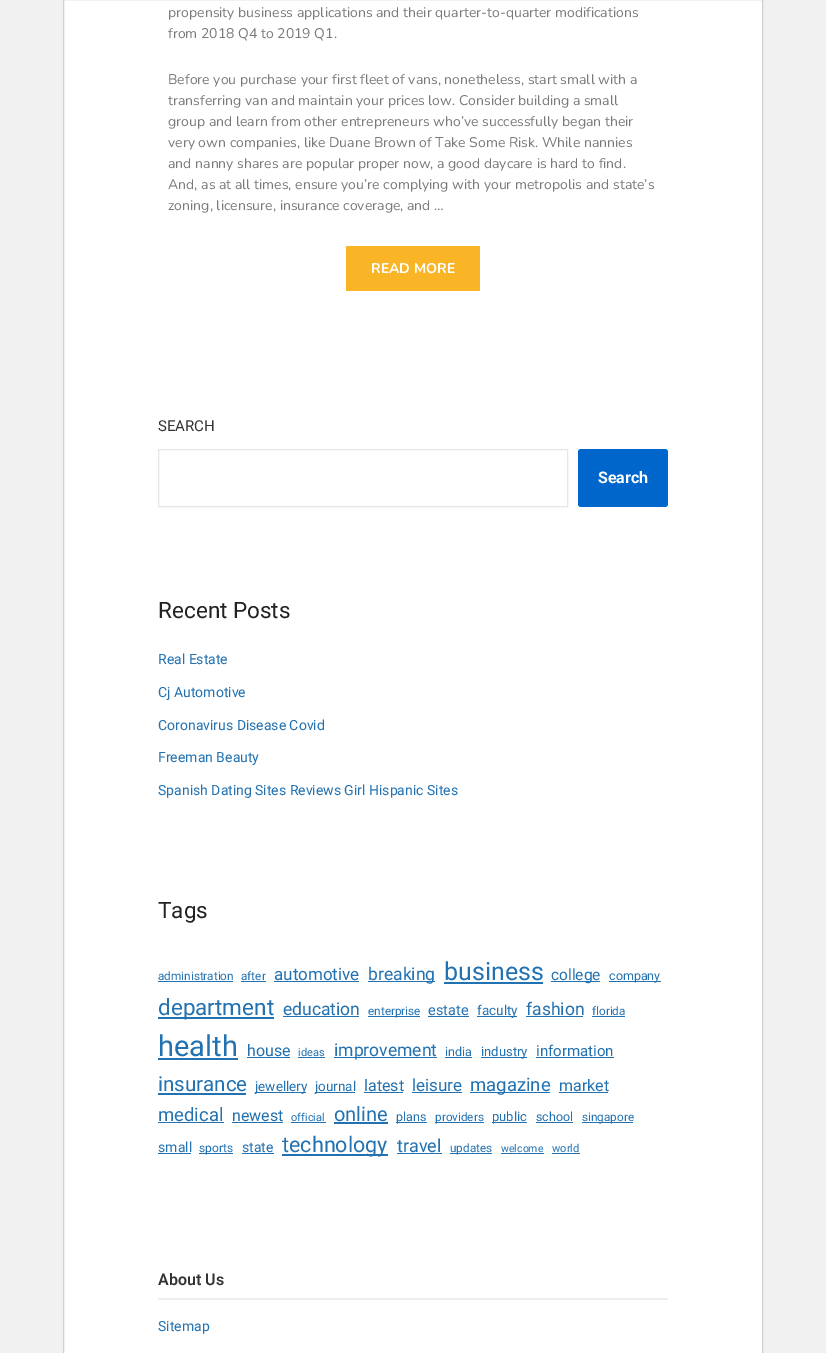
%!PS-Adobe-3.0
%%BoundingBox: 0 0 826 1353
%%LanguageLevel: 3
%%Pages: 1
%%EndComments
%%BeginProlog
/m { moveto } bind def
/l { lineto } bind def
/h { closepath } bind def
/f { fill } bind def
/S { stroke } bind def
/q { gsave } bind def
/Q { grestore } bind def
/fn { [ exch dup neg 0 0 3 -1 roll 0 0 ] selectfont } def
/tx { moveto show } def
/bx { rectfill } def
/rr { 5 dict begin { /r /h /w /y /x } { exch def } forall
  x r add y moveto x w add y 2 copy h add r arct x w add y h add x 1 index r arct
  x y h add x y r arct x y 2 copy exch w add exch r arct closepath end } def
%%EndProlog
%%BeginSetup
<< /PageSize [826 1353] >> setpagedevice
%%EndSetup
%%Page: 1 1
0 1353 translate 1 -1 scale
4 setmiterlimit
0.945 setgray
0 0 826 1353 bx
1 setgray
63.5 -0.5 m 762.5 -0.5 l 762.5 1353.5 l 63.5 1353.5 l h q f Q
0.8 0.816 0.831 setrgbcolor
S
/Nunito-Regular 14 fn
0.475 setgray
(propensity business applications and their quarter-to-quarter modifications) 168 17 tx
(from 2018 Q4 to 2019 Q1.) 168 38 tx
(Before you purchase your first fleet of vans, nonetheless, start small with a) 168 84 tx
(transferring van and maintain your prices low. Consider building a small) 168 105 tx
(group and learn from other entrepreneurs who’ve successfully began their) 168 126 tx
(very own companies, like Duane Brown of Take Some Risk. While nannies) 168 147 tx
(and nanny shares are popular proper now, a good daycare is hard to find.) 168 168 tx
(And, as at all times, ensure you’re complying with your metropolis and state’s) 168 189 tx
(zoning, licensure, insurance coverage, and …) 168 210 tx
0.98 0.71 0.149 setrgbcolor
346 246 134 45 bx
/Nunito-Bold 14 fn
1 setgray
(READ MORE) 371 273 tx
/Roboto-Regular 15 fn
0.2 setgray
(SEARCH) 158 431 tx
0.898 0.902 0.914 setrgbcolor
158.5 449.5 409 57 rectstroke
0 0.4 0.8 setrgbcolor
578 449 90 58 3 rr f
/Roboto-Bold 16 fn
1 setgray
(Search) 598 483 tx
/Roboto-Regular 22.5 fn
0.133 setgray
(Recent Posts) 158 618 tx
/Roboto-Regular 14 fn
0.133 0.443 0.694 setrgbcolor
(Real Estate) 158 664 tx
(Cj Automotive) 158 697 tx
(Coronavirus Disease Covid) 158 730 tx
(Freeman Beauty) 158 762 tx
(Spanish Dating Sites Reviews Girl Hispanic Sites) 158 795 tx
/Roboto-Regular 22.5 fn
0.133 setgray
(Tags) 158 918 tx
/Roboto-Regular 11.75 fn
0.133 0.443 0.694 setrgbcolor
(administration) 158 980 tx
158 981 75 1 bx
(after) 241 980 tx
241 981 25 1 bx
/Roboto-Regular 17 fn
(automotive) 274 980 tx
274 981 85 1 bx
368 981 67 1 bx
/Roboto-Regular 17.5 fn
(breaking) 368 980 tx
/Roboto-Regular 25 fn
(business) 444 980 tx
444 982 99 2 bx
551 981 49 1 bx
/Roboto-Regular 15.5 fn
(college) 551 980 tx
609 981 52 1 bx
/Roboto-Regular 12.5 fn
(company) 609 980 tx
158 1017 116 2 bx
/Roboto-Regular 22.5 fn
(department) 158 1015 tx
/Roboto-Regular 17.5 fn
(education) 283 1015 tx
283 1016 76 1 bx
368 1016 52 1 bx
/Roboto-Regular 11.75 fn
(enterprise) 368 1015 tx
/Roboto-Regular 14.5 fn
(estate) 428 1015 tx
428 1016 41 1 bx
477 1016 40 1 bx
/Roboto-Regular 13.5 fn
(faculty) 477 1015 tx
/Roboto-Regular 17.5 fn
(fashion) 526 1015 tx
526 1016 57 1 bx
/Roboto-Regular 11.75 fn
(florida) 592 1015 tx
592 1016 33 1 bx
/Roboto-Regular 29 fn
(health) 158 1056 tx
158 1058 80 2 bx
/Roboto-Regular 16 fn
(house) 247 1056 tx
247 1057 43 1 bx
/Roboto-Regular 11 fn
(ideas) 298 1056 tx
298 1057 27 1 bx
334 1057 103 1 bx
/Roboto-Regular 17.5 fn
(improvement) 334 1056 tx
/Roboto-Regular 12.5 fn
(india) 445 1056 tx
445 1057 27 1 bx
481 1057 46 1 bx
/Roboto-Regular 13 fn
(industry) 481 1056 tx
/Roboto-Regular 15 fn
(information) 536 1056 tx
536 1057 78 1 bx
/Roboto-Regular 20.5 fn
(insurance) 158 1091 tx
158 1093 88 2 bx
255 1092 51 1 bx
/Roboto-Regular 13.5 fn
(jewellery) 255 1091 tx
315 1092 40 1 bx
(journal) 315 1091 tx
/Roboto-Regular 16 fn
(latest) 364 1091 tx
364 1092 39 1 bx
/Roboto-Regular 17 fn
(leisure) 412 1091 tx
412 1092 50 1 bx
470 1092 80 1 bx
/Roboto-Regular 18.5 fn
(magazine) 470 1091 tx
/Roboto-Regular 16 fn
(market) 559 1091 tx
559 1092 49 1 bx
/Roboto-Regular 18.5 fn
(medical) 158 1121 tx
158 1122 66 1 bx
/Roboto-Regular 16 fn
(newest) 232 1121 tx
232 1122 51 1 bx
/Roboto-Regular 11 fn
(official) 291 1121 tx
291 1122 35 1 bx
/Roboto-Regular 20 fn
(online) 334 1121 tx
334 1122 54 2 bx
396 1122 31 1 bx
/Roboto-Regular 12.5 fn
(plans) 396 1121 tx
435 1122 49 1 bx
/Roboto-Regular 11.75 fn
(providers) 435 1121 tx
492 1122 35 1 bx
/Roboto-Regular 13 fn
(public) 492 1121 tx
/Roboto-Regular 12.5 fn
(school) 536 1121 tx
536 1122 37 1 bx
582 1122 51 1 bx
/Roboto-Regular 11.75 fn
(singapore) 582 1121 tx
/Roboto-Regular 14 fn
(small) 158 1152 tx
158 1153 33 1 bx
199 1153 34 1 bx
/Roboto-Regular 12 fn
(sports) 199 1152 tx
/Roboto-Regular 14 fn
(state) 242 1152 tx
242 1153 32 1 bx
282 1154 106 2 bx
/Roboto-Regular 21.5 fn
(technology) 282 1152 tx
/Roboto-Regular 18 fn
(travel) 397 1152 tx
397 1153 45 1 bx
450 1153 42 1 bx
/Roboto-Regular 11.75 fn
(updates) 450 1152 tx
/Roboto-Regular 10.5 fn
(welcome) 501 1152 tx
501 1153 43 1 bx
/Roboto-Regular 11 fn
(world) 552 1152 tx
552 1153 28 1 bx
0.933 setgray
158 1298 510 2 bx
/Roboto-SemiBold 16 fn
0.2 setgray
(About Us) 158 1285 tx
/Roboto-Regular 14 fn
0.133 0.443 0.694 setrgbcolor
(Sitemap) 158 1331 tx
showpage
%%EOF
